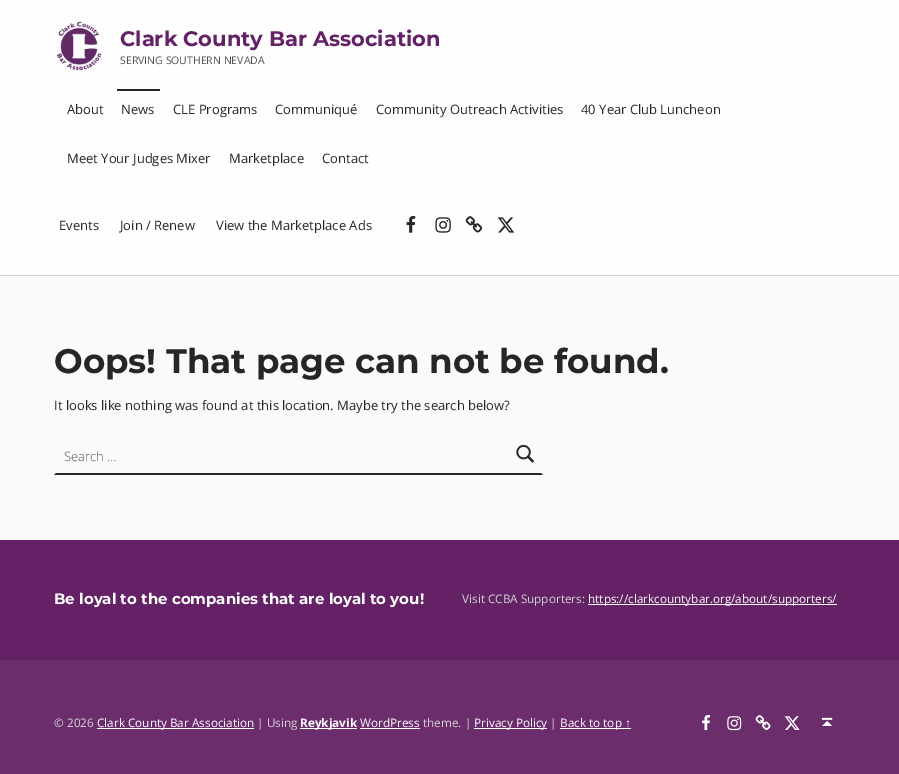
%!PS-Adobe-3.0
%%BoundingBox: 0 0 899 774
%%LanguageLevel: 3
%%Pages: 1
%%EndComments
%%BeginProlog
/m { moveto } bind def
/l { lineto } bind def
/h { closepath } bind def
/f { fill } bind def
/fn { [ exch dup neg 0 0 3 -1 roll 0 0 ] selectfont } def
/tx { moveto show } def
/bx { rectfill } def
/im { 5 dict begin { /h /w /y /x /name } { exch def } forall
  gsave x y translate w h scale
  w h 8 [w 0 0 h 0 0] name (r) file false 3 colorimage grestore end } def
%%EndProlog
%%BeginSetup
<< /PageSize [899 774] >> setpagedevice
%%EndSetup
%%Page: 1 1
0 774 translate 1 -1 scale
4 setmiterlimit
0.98 0.98 0.984 setrgbcolor
0 0 899 774 bx
0.996 0.996 1 setrgbcolor
0 0 899 275 bx
0.827 0.827 0.831 setrgbcolor
0 275 899 1 bx
(image0.raw) 56 21 46 50 im
/Montserrat-Bold 21 fn
0.392 0.129 0.396 setrgbcolor
(Clark County Bar Association) 120 46 tx
/OpenSans-Regular 10.5 fn
0.318 setgray
(SERVING SOUTHERN NEVADA) 120 64 tx
/OpenSans-Regular 13 fn
0.149 setgray
(About) 67 114 tx
117 89 43 2 bx
(News) 121 114 tx
(CLE Programs) 173 114 tx
(Communiqué) 275 114 tx
(Community Outreach Activities) 376 114 tx
(40 Year Club Luncheon) 581 114 tx
(Meet Your Judges Mixer) 67 163 tx
(Marketplace) 229 163 tx
(Contact) 322 163 tx
(Events) 59 230 tx
(Join / Renew) 120 230 tx
(View the Marketplace Ads) 216 230 tx
(image1.raw) 406 216 10 17 im
(image2.raw) 435 217 16 16 im
(image3.raw) 465 216 18 17 im
(image4.raw) 497 217 18 16 im
/Montserrat-Bold 34 fn
(Oops! That page can not be found.) 54 373 tx
/OpenSans-Regular 13 fn
(It looks like nothing was found at this location. Maybe try the search below?) 54 410 tx
543 475 m 54 475 l 56 473 l 541 473 l h f
/OpenSans-Light 13 fn
0.318 setgray
(Search …) 64 461 tx
(image5.raw) 516 444 19 19 im
0.392 0.129 0.396 setrgbcolor
0 540 899 120 bx
/Montserrat-Bold 15 fn
0.996 0.996 1 setrgbcolor
(Be loyal to the companies that are loyal to you!) 54 604 tx
/OpenSans-Regular 11.75 fn
0.827 0.827 0.831 setrgbcolor
(Visit CCBA Supporters:) 462 603 tx
0.996 0.996 1 setrgbcolor
588 604 249 1 bx
(https://clarkcountybar.org/about/supporters/) 588 603 tx
0.424 0.176 0.427 setrgbcolor
0 660 899 114 bx
0.827 0.827 0.831 setrgbcolor
(© 2026) 54 727 tx
0.996 0.996 1 setrgbcolor
97 728 157 1 bx
(Clark County Bar Association) 97 727 tx
0.827 0.827 0.831 setrgbcolor
(| Using) 257 727 tx
0.996 0.996 1 setrgbcolor
300 728 57 1 bx
/OpenSans-Bold 11.75 fn
(Reykjavik) 300 727 tx
/OpenSans-Regular 11.75 fn
(WordPress) 360 727 tx
360 728 60 1 bx
0.827 0.827 0.831 setrgbcolor
(theme. |) 423 727 tx
0.996 0.996 1 setrgbcolor
474 728 73 1 bx
(Privacy Policy) 474 727 tx
0.827 0.827 0.831 setrgbcolor
(|) 550 727 tx
0.996 0.996 1 setrgbcolor
560 728 71 1 bx
(Back to top) 560 727 tx
/LiberationSans-Regular 11.75 fn
(↑) 625 727 tx
(image6.raw) 702 715 8 16 im
(image7.raw) 727 716 15 15 im
(image8.raw) 755 715 16 15 im
(image9.raw) 784 716 16 14 im
(image10.raw) 822 717 11 9 im
showpage
%%EOF
